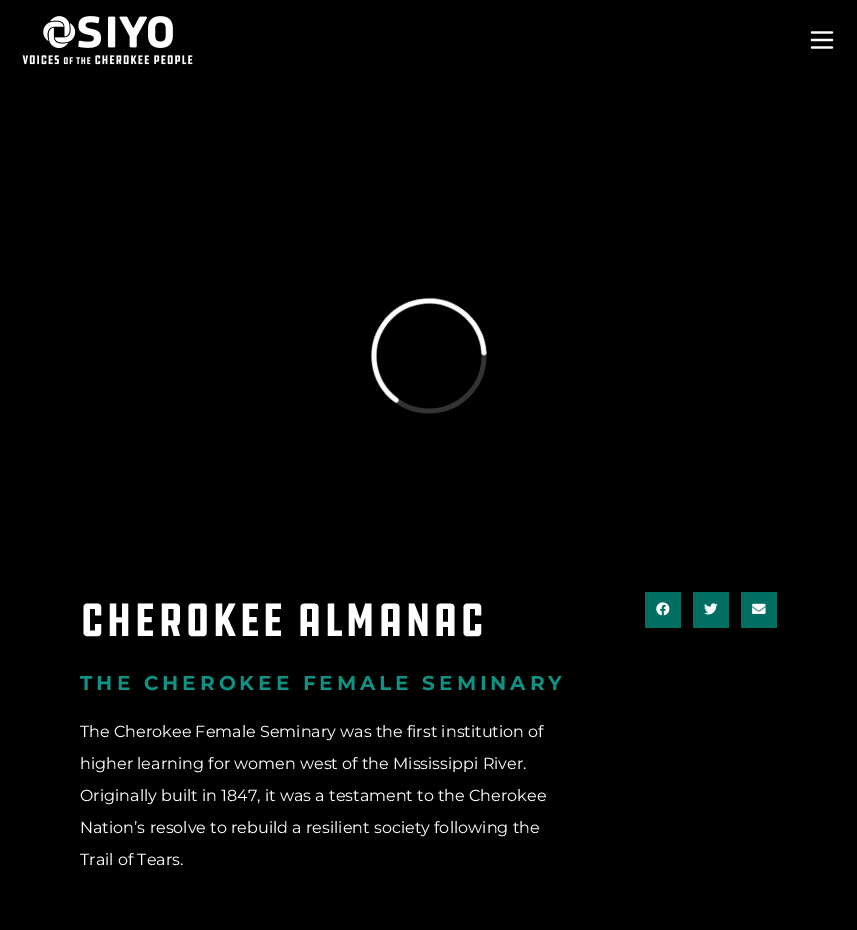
%!PS-Adobe-3.0
%%BoundingBox: 0 0 857 930
%%LanguageLevel: 3
%%Pages: 1
%%EndComments
%%BeginProlog
/m { moveto } bind def
/l { lineto } bind def
/S { stroke } bind def
/w { setlinewidth } bind def
/fn { [ exch dup neg 0 0 3 -1 roll 0 0 ] selectfont } def
/tx { moveto show } def
/bx { rectfill } def
/im { 5 dict begin { /h /w /y /x /name } { exch def } forall
  gsave x y translate w h scale
  w h 8 [w 0 0 h 0 0] name (r) file false 3 colorimage grestore end } def
%%EndProlog
%%BeginSetup
<< /PageSize [857 930] >> setpagedevice
%%EndSetup
%%Page: 1 1
0 930 translate 1 -1 scale
4 setmiterlimit
0 setgray
0 0 857 930 bx
(image0.raw) 22 16 171 49 im
1 setgray
2.2 w
1 setlinecap
812 47.5 m 832 47.5 l 812 40 m 832 40 l 812 32.5 m 832 32.5 l S
(image1.raw) 370 297 118 117 im
/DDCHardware-Regular 48 fn
80 636 m 2 0 (Cherokee Almanac) ashow
/Montserrat-Bold 20 fn
0.059 0.569 0.518 setrgbcolor
80 690 m 4 0 (THE CHEROKEE FEMALE SEMINARY) ashow
/Montserrat-Regular 16 fn
1 setgray
(The Cherokee Female Seminary was the first institution of) 80 737 tx
(higher learning for women west of the Mississippi River.) 80 769 tx
(Originally built in 1847, it was a testament to the Cherokee) 80 801 tx
(Nation’s resolve to rebuild a resilient society following the) 80 833 tx
(Trail of Tears.) 80 865 tx
0 0.431 0.388 setrgbcolor
645 592 36 36 bx
(image2.raw) 656 602 14 14 im
693 592 36 36 bx
(image3.raw) 704 603 14 12 im
741 592 36 36 bx
(image4.raw) 752 603 14 11 im
showpage
%%EOF
